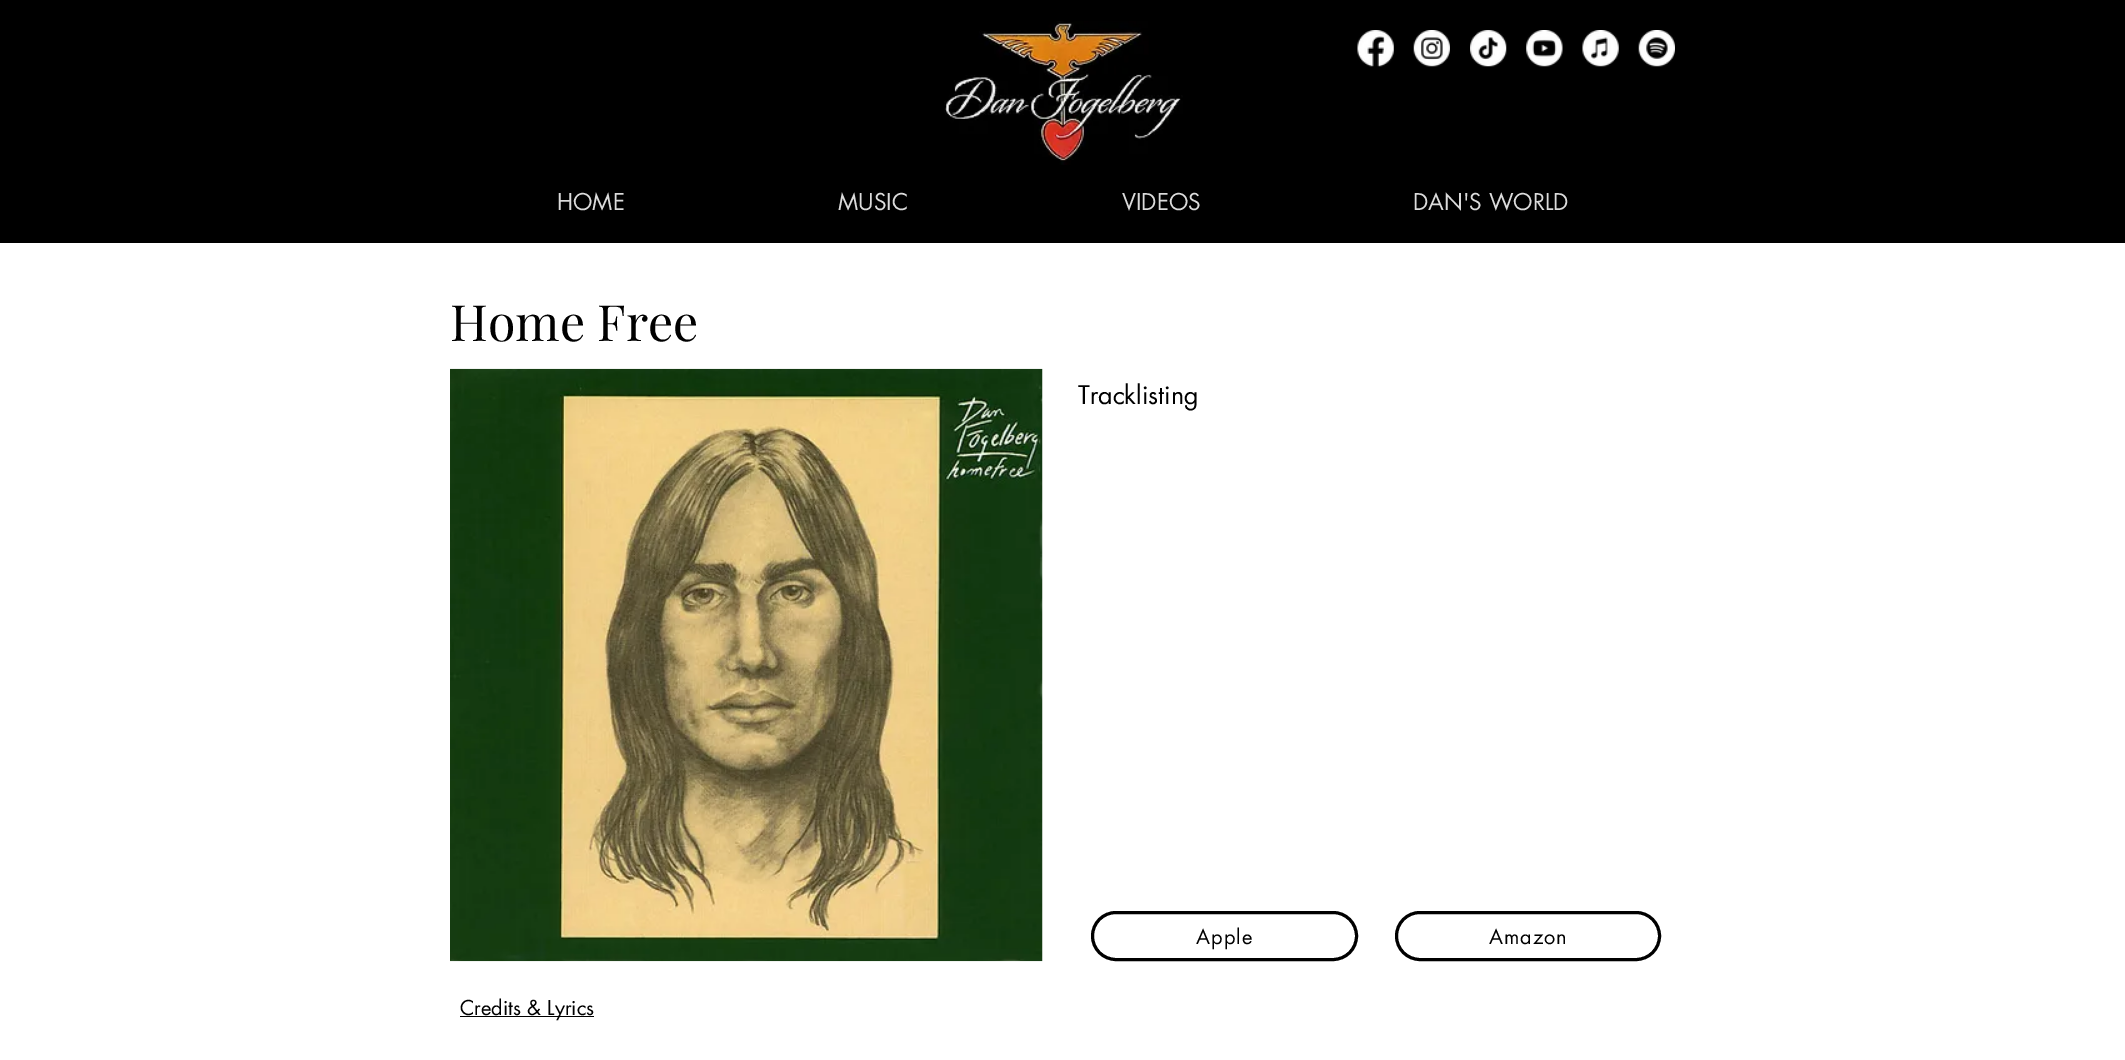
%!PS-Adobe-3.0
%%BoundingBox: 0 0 2125 1060
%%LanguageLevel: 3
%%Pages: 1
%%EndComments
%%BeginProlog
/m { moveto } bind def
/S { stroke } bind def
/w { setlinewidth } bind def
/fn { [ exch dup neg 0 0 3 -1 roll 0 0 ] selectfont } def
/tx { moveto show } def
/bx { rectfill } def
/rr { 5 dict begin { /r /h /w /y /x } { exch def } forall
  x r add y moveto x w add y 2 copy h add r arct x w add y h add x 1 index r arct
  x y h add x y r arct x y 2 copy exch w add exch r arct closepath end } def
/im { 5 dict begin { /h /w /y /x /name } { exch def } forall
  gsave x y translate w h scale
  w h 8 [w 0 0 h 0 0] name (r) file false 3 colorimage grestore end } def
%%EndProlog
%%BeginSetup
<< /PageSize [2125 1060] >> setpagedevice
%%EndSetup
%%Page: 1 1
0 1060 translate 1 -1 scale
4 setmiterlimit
1 setgray
0 0 2125 1060 bx
0 setgray
0 0 2125 243 bx
(image0.raw) 944 21 239 144 im
(image1.raw) 1357 30 37 37 im
(image2.raw) 1413 30 37 37 im
(image3.raw) 1470 30 37 37 im
(image4.raw) 1526 30 37 37 im
(image5.raw) 1582 30 37 37 im
(image6.raw) 1638 30 37 37 im
/futura-Regular 22.5 fn
0.859 setgray
(HOME) 557 210 tx
(MUSIC) 838 210 tx
(VIDEOS) 1122 210 tx
(DAN'S WORLD) 1413 210 tx
/PlayfairDisplay-Regular 50 fn
0 setgray
(Home Free) 450 341 tx
(image7.raw) 450 368 593 594 im
/futura-Regular 25 fn
(Tracklisting) 1078 404 tx
3 w
1092.5 912.5 264 47 23.5 rr S
/futura-Regular 20 fn
1196 944 m 1 0 (Apple) ashow
1396.5 912.5 263 47 23.5 rr S
1489 944 m 1 0 (Amazon) ashow
460 1016 134 1 bx
(Credits & Lyrics) 460 1015 tx
showpage
%%EOF
